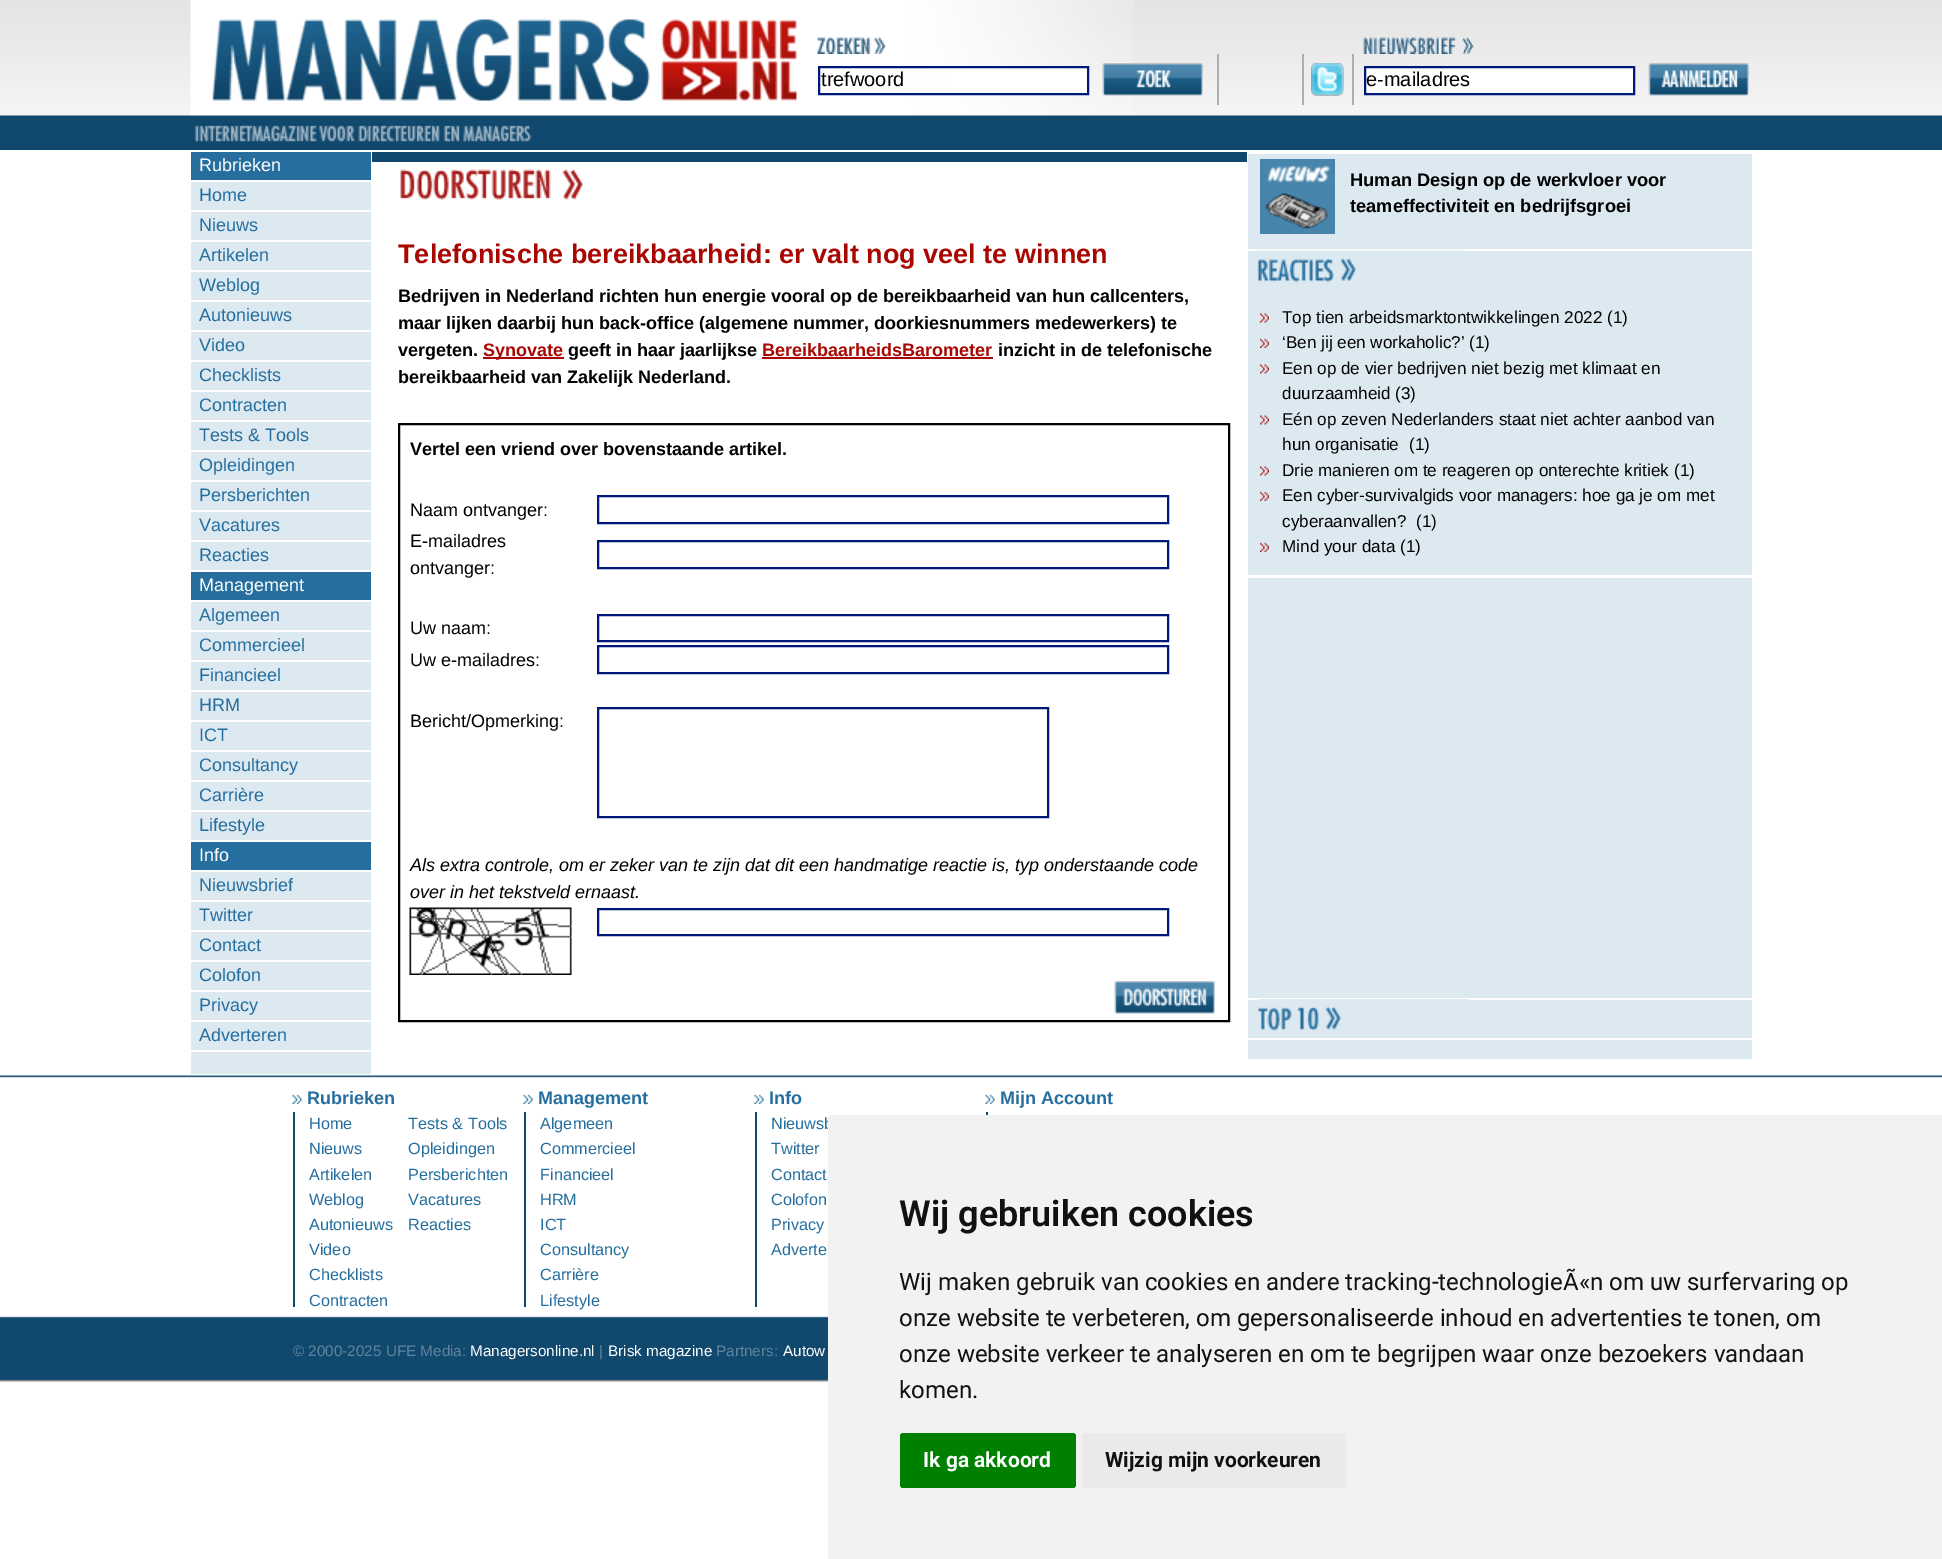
%!PS-Adobe-3.0
%%BoundingBox: 0 0 1942 1559
%%LanguageLevel: 3
%%Pages: 1
%%EndComments
%%BeginProlog
/m { moveto } bind def
/l { lineto } bind def
/h { closepath } bind def
/f { fill } bind def
/S { stroke } bind def
/q { gsave } bind def
/Q { grestore } bind def
/w { setlinewidth } bind def
/fn { [ exch dup neg 0 0 3 -1 roll 0 0 ] selectfont } def
/tx { moveto show } def
/bx { rectfill } def
/rr { 5 dict begin { /r /h /w /y /x } { exch def } forall
  x r add y moveto x w add y 2 copy h add r arct x w add y h add x 1 index r arct
  x y h add x y r arct x y 2 copy exch w add exch r arct closepath end } def
/im { 5 dict begin { /h /w /y /x /name } { exch def } forall
  gsave x y translate w h scale
  w h 8 [w 0 0 h 0 0] name (r) file false 3 colorimage grestore end } def
%%EndProlog
%%BeginSetup
<< /PageSize [1942 1559] >> setpagedevice
%%EndSetup
%%Page: 1 1
0 1559 translate 1 -1 scale
4 setmiterlimit
1 setgray
0 0 1942 1559 bx
(image0.raw) 0 0 1942 150 im
(image1.raw) 797 0 336 116 im
(image2.raw) 190 0 607 142 im
(image3.raw) 817 37 69 17 im
(image4.raw) 1363 37 111 17 im
952 68 135 25 bx
0 0.094 0.478 setrgbcolor
2 w
819 67 269 27 rectstroke
/LiberationSans-Regular 20 fn
0 setgray
(trefwoord) 821 86 tx
(image5.raw) 1102 63 101 33 im
0.682 setgray
1217 54 2 51 bx
1352 54 2 51 bx
1302 54 2 51 bx
(image6.raw) 1311 63 33 33 im
1 setgray
1365 67 m 1634 67 l 1634 94 l 1365 94 l h q f Q
0 0.094 0.478 setrgbcolor
S
0 setgray
(e-mailadres) 1366 86 tx
(image7.raw) 1648 63 101 33 im
0.867 0.914 0.945 setrgbcolor
191 182 180 892 bx
0.145 0.431 0.62 setrgbcolor
191 152 180 28 bx
/LiberationSans-Regular 18 fn
1 setgray
(Rubrieken) 199 171 tx
191 210 180 2 bx
0.145 0.431 0.62 setrgbcolor
(Home) 199 201 tx
1 setgray
191 240 180 2 bx
0.145 0.431 0.62 setrgbcolor
(Nieuws) 199 231 tx
1 setgray
191 270 180 2 bx
0.145 0.431 0.62 setrgbcolor
(Artikelen) 199 261 tx
1 setgray
191 300 180 2 bx
0.145 0.431 0.62 setrgbcolor
(Weblog) 199 291 tx
1 setgray
191 330 180 2 bx
0.145 0.431 0.62 setrgbcolor
(Autonieuws) 199 321 tx
1 setgray
191 360 180 2 bx
0.145 0.431 0.62 setrgbcolor
(Video) 199 351 tx
1 setgray
191 390 180 2 bx
0.145 0.431 0.62 setrgbcolor
(Checklists) 199 381 tx
1 setgray
191 420 180 2 bx
0.145 0.431 0.62 setrgbcolor
(Contracten) 199 411 tx
1 setgray
191 450 180 2 bx
0.145 0.431 0.62 setrgbcolor
(Tests & Tools) 199 441 tx
1 setgray
191 480 180 2 bx
0.145 0.431 0.62 setrgbcolor
(Opleidingen) 199 471 tx
1 setgray
191 510 180 2 bx
0.145 0.431 0.62 setrgbcolor
(Persberichten) 199 501 tx
1 setgray
191 540 180 2 bx
0.145 0.431 0.62 setrgbcolor
(Vacatures) 199 531 tx
1 setgray
191 570 180 2 bx
0.145 0.431 0.62 setrgbcolor
(Reacties) 199 561 tx
191 572 180 28 bx
1 setgray
191 600 180 2 bx
(Management) 199 591 tx
191 630 180 2 bx
0.145 0.431 0.62 setrgbcolor
(Algemeen) 199 621 tx
1 setgray
191 660 180 2 bx
0.145 0.431 0.62 setrgbcolor
(Commercieel) 199 651 tx
1 setgray
191 690 180 2 bx
0.145 0.431 0.62 setrgbcolor
(Financieel) 199 681 tx
1 setgray
191 720 180 2 bx
0.145 0.431 0.62 setrgbcolor
(HRM) 199 711 tx
1 setgray
191 750 180 2 bx
0.145 0.431 0.62 setrgbcolor
(ICT) 199 741 tx
1 setgray
191 780 180 2 bx
0.145 0.431 0.62 setrgbcolor
(Consultancy) 199 771 tx
1 setgray
191 810 180 2 bx
0.145 0.431 0.62 setrgbcolor
(Carrière) 199 801 tx
1 setgray
191 840 180 2 bx
0.145 0.431 0.62 setrgbcolor
(Lifestyle) 199 831 tx
191 842 180 28 bx
1 setgray
191 870 180 2 bx
(Info) 199 861 tx
191 900 180 2 bx
0.145 0.431 0.62 setrgbcolor
(Nieuwsbrief) 199 891 tx
1 setgray
191 930 180 2 bx
0.145 0.431 0.62 setrgbcolor
(Twitter) 199 921 tx
1 setgray
191 960 180 2 bx
0.145 0.431 0.62 setrgbcolor
(Contact) 199 951 tx
1 setgray
191 990 180 2 bx
0.145 0.431 0.62 setrgbcolor
(Colofon) 199 981 tx
1 setgray
191 1020 180 2 bx
0.145 0.431 0.62 setrgbcolor
(Privacy) 199 1011 tx
1 setgray
191 1050 180 2 bx
0.145 0.431 0.62 setrgbcolor
(Adverteren) 199 1041 tx
0.067 0.282 0.427 setrgbcolor
372 152 875 10 bx
(image8.raw) 400 169 184 31 im
/LiberationSans-Bold 27 fn
0.663 0.027 0.004 setrgbcolor
(Telefonische bereikbaarheid: er valt nog veel te winnen) 398 263 tx
/LiberationSans-Bold 18 fn
0 setgray
(Bedrijven in Nederland richten hun energie vooral op de bereikbaarheid van hun callcenters,) 398 302 tx
(maar lijken daarbij hun back-office \(algemene nummer, doorkiesnummers medewerkers\) te) 398 329 tx
(vergeten.) 398 356 tx
0.663 0.027 0.004 setrgbcolor
483 357 81 2 bx
(Synovate) 483 356 tx
0 setgray
(geeft in haar jaarlijkse) 568 356 tx
0.663 0.027 0.004 setrgbcolor
(BereikbaarheidsBarometer) 762 356 tx
762 357 231 2 bx
0 setgray
(inzicht in de telefonische) 998 356 tx
(bereikbaarheid van Zakelijk Nederland.) 398 383 tx
399 424 830 597 rectstroke
(Vertel een vriend over bovenstaande artikel.) 410 455 tx
/LiberationSans-Regular 18 fn
(Naam ontvanger:) 410 516 tx
0 0.094 0.478 setrgbcolor
598 496 570 27 rectstroke
0 setgray
(E-mailadres) 410 547 tx
(ontvanger:) 410 574 tx
0 0.094 0.478 setrgbcolor
598 541 570 27 rectstroke
0 setgray
(Uw naam:) 410 634 tx
0 0.094 0.478 setrgbcolor
598 615 570 26 rectstroke
0 setgray
(Uw e-mailadres:) 410 666 tx
0 0.094 0.478 setrgbcolor
598 646 570 27 rectstroke
0 setgray
(Bericht/Opmerking:) 410 727 tx
0 0.094 0.478 setrgbcolor
598 708 450 109 rectstroke
/LiberationSans-Italic 18 fn
0 setgray
(Als extra controle, om er zeker van te zijn dat dit een handmatige reactie is, typ onderstaande code) 410 871 tx
(over in het tekstveld ernaast.) 410 898 tx
(image9.raw) 409 907 163 68 im
0 0.094 0.478 setrgbcolor
598 909 570 26 rectstroke
(image10.raw) 1114 981 101 33 im
0.867 0.914 0.945 setrgbcolor
1248 154 504 905 bx
1 setgray
1248 249 504 2 bx
(image11.raw) 1260 159 75 75 im
/LiberationSans-Bold 18.25 fn
0 setgray
(Human Design op de werkvloer voor) 1350 186 tx
(teameffectiviteit en bedrijfsgroei) 1350 212 tx
1 setgray
1248 575 504 3 bx
(image12.raw) 1257 250 210 33 im
(image13.raw) 1260 313 9 10 im
/LiberationSans-Regular 17.1 fn
0 setgray
(Top tien arbeidsmarktontwikkelingen 2022 \(1\)) 1282 323 tx
(image14.raw) 1260 338 9 10 im
(‘Ben jij een workaholic?’ \(1\)) 1282 348 tx
(image13.raw) 1260 364 9 10 im
(Een op de vier bedrijven niet bezig met klimaat en) 1282 374 tx
(duurzaamheid \(3\)) 1282 399 tx
(image13.raw) 1260 415 9 10 im
(Eén op zeven Nederlanders staat niet achter aanbod van) 1282 425 tx
(hun organisatie) 1282 450 tx
(\(1\)) 1409 450 tx
(image13.raw) 1260 466 9 10 im
(Drie manieren om te reageren op onterechte kritiek) 1282 476 tx
(\(1\)) 1674 476 tx
(image14.raw) 1260 491 9 10 im
(Een cyber-survivalgids voor managers: hoe ga je om met) 1282 501 tx
(cyberaanvallen?) 1282 527 tx
(\(1\)) 1416 527 tx
(image14.raw) 1260 542 9 10 im
(Mind your data \(1\)) 1282 552 tx
1 setgray
1248 998 504 2 bx
1248 1038 504 2 bx
(image15.raw) 1258 999 211 32 im
(image16.raw) 0 1075 1942 307 im
(image17.raw) 292 1094 10 10 im
/LiberationSans-Bold 18 fn
0.145 0.431 0.62 setrgbcolor
(Rubrieken) 307 1104 tx
0.067 0.282 0.427 setrgbcolor
293 1112 2 195 bx
/LiberationSans-Regular 16.25 fn
0.145 0.431 0.62 setrgbcolor
(Home) 309 1129 tx
(Tests & Tools) 408 1129 tx
(Nieuws) 309 1154 tx
(Opleidingen) 408 1154 tx
(Artikelen) 309 1180 tx
(Persberichten) 408 1180 tx
(Weblog) 309 1205 tx
(Vacatures) 408 1205 tx
(Autonieuws) 309 1230 tx
(Reacties) 408 1230 tx
(Video) 309 1255 tx
(Checklists) 309 1280 tx
(Contracten) 309 1306 tx
(image17.raw) 523 1094 10 10 im
/LiberationSans-Bold 18 fn
(Management) 538 1104 tx
0.067 0.282 0.427 setrgbcolor
524 1112 2 195 bx
/LiberationSans-Regular 16.25 fn
0.145 0.431 0.62 setrgbcolor
(Algemeen) 540 1129 tx
(Commercieel) 540 1154 tx
(Financieel) 540 1180 tx
(HRM) 540 1205 tx
(ICT) 540 1230 tx
(Consultancy) 540 1255 tx
(Carrière) 540 1280 tx
(Lifestyle) 540 1306 tx
(image17.raw) 754 1094 10 10 im
/LiberationSans-Bold 18 fn
(Info) 769 1104 tx
0.067 0.282 0.427 setrgbcolor
755 1112 2 195 bx
/LiberationSans-Regular 16.25 fn
0.145 0.431 0.62 setrgbcolor
(Nieuwsb) 771 1129 tx
(Twitter) 771 1154 tx
(Contact) 771 1180 tx
(Colofon) 771 1205 tx
(Privacy) 771 1230 tx
(Adverte) 771 1255 tx
(image18.raw) 985 1094 10 10 im
/LiberationSans-Bold 18 fn
(Mijn Account) 1000 1104 tx
0.067 0.282 0.427 setrgbcolor
986 1112 2 3 bx
/LiberationSans-Regular 15.25 fn
0.373 0.518 0.616 setrgbcolor
(© 2000-2025 UFE Media:) 293 1356 tx
1 setgray
(Managersonline.nl) 470 1356 tx
0.373 0.518 0.616 setrgbcolor
(|) 599 1356 tx
1 setgray
(Brisk magazine) 608 1356 tx
0.373 0.518 0.616 setrgbcolor
(Partners:) 716 1356 tx
1 setgray
(Autow) 783 1356 tx
0.949 setgray
828 1115 1114 444 bx
/Roboto-SemiBold 36 fn
0.067 setgray
(Wij gebruiken cookies) 899 1226 tx
/Roboto-Regular 24 fn
(Wij maken gebruik van cookies en andere tracking-technologieÃ«n om uw surfervaring op) 899 1290 tx
(onze website te verbeteren, om gepersonaliseerde inhoud en advertenties te tonen, om) 899 1326 tx
(onze website verkeer te analyseren en om te begrijpen waar onze bezoekers vandaan) 899 1362 tx
(komen.) 899 1398 tx
0 0.502 0 setrgbcolor
900 1433 176 55 3 rr f
/Roboto-Bold 21 fn
1 setgray
(Ik ga akkoord) 923 1467 tx
0.918 setgray
1082 1433 264 55 3 rr f
0.067 setgray
(Wijzig mijn voorkeuren) 1105 1467 tx
showpage
%%EOF
